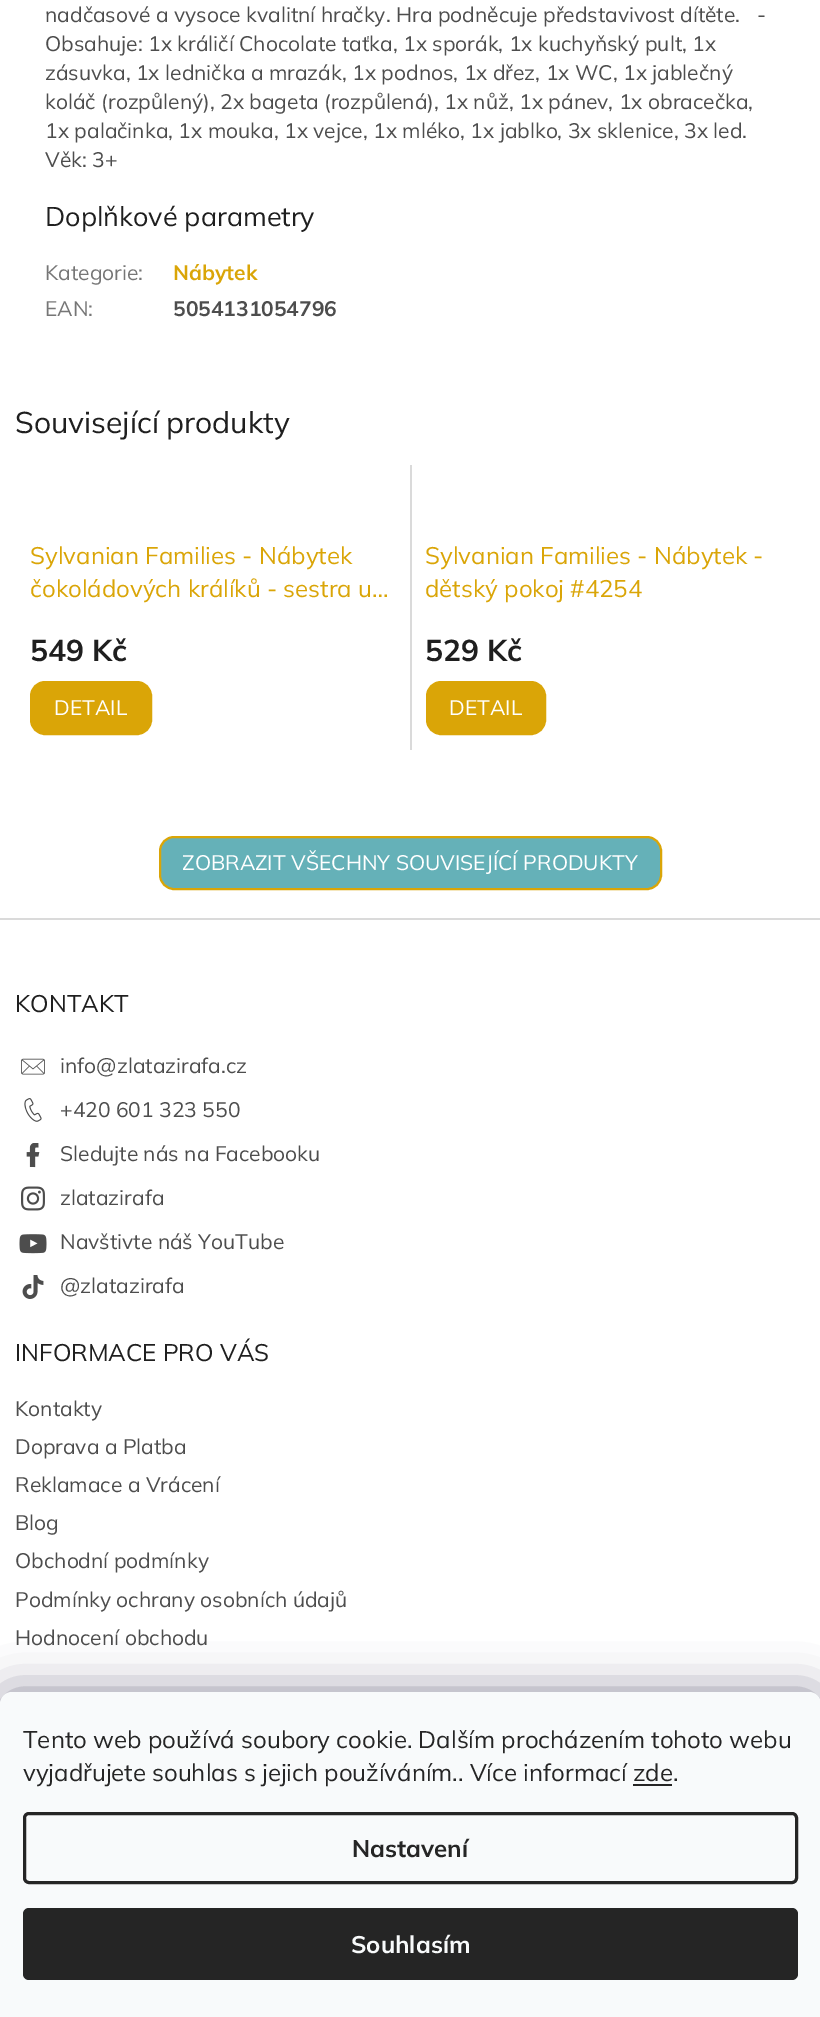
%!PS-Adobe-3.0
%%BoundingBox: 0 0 820 2017
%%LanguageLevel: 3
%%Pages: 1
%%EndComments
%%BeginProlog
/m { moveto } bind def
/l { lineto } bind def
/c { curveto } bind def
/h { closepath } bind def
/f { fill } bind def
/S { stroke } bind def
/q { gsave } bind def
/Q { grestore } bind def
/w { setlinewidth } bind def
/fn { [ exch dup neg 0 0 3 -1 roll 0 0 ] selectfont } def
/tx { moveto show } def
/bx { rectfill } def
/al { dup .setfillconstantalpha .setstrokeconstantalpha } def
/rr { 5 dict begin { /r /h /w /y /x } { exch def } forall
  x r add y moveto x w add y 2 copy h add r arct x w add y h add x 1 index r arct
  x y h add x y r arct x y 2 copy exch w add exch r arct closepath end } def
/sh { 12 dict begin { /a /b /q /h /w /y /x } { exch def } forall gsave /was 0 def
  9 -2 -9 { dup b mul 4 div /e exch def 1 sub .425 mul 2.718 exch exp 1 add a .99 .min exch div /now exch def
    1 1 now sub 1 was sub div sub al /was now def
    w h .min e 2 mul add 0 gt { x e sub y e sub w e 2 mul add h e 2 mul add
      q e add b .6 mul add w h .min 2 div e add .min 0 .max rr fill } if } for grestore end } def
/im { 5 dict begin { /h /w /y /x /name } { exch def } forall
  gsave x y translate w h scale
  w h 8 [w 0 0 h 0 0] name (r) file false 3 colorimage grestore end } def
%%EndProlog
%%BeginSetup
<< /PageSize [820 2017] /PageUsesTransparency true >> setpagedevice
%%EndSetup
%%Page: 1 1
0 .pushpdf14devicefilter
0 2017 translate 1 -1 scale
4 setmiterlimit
1 setgray
0 0 820 2017 bx
/Mulish-Regular 21 fn
0.302 setgray
(nadčasové a vysoce kvalitní hračky. Hra podněcuje představivost dítěte.) 45 22 tx
(-) 757 22 tx
(Obsahuje: 1x králičí Chocolate taťka, 1x sporák, 1x kuchyňský pult, 1x) 45 51 tx
(zásuvka, 1x lednička a mrazák, 1x podnos, 1x dřez, 1x WC, 1x jablečný) 45 80 tx
(koláč \(rozpůlený\), 2x bageta \(rozpůlená\), 1x nůž, 1x pánev, 1x obracečka,) 45 109 tx
(1x palačinka, 1x mouka, 1x vejce, 1x mléko, 1x jablko, 3x sklenice, 3x led.) 45 138 tx
(Věk: 3+) 45 167 tx
/Mulish-Regular 27 fn
0.122 setgray
(Doplňkové parametry) 45 226 tx
/Mulish-Regular 21 fn
0.463 setgray
(Kategorie:) 45 280 tx
/Mulish-Bold 21 fn
0.855 0.647 0.027 setrgbcolor
(Nábytek) 173 280 tx
/Mulish-Regular 21 fn
0.463 setgray
(EAN:) 45 316 tx
/Mulish-Bold 21 fn
0.302 setgray
(5054131054796) 173 316 tx
/Mulish-Regular 30 fn
0.122 setgray
(Související produkty) 15 433 tx
0.855 setgray
410 465 2 285 bx
/Mulish-Regular 24 fn
0.855 0.647 0.027 setrgbcolor
(Sylvanian Families - Nábytek) 30 564 tx
(čokoládových králíků - sestra u…) 30 597 tx
/Mulish-Bold 30 fn
0.122 setgray
(549 Kč) 30 661 tx
0.855 0.647 0.027 setrgbcolor
31 682 120 52 14 rr q f Q
2 w
S
/Mulish-Regular 21 fn
1 setgray
(DETAIL) 54 715 tx
/Mulish-Regular 24 fn
0.855 0.647 0.027 setrgbcolor
(Sylvanian Families - Nábytek -) 425 564 tx
(dětský pokoj #4254) 425 597 tx
/Mulish-Bold 30 fn
0.122 setgray
(529 Kč) 425 661 tx
0.855 0.647 0.027 setrgbcolor
427 682 118 52 14 rr q f Q
S
/Mulish-Regular 21 fn
1 setgray
(DETAIL) 449 715 tx
0.396 0.694 0.722 setrgbcolor
160 837 501 52 14 rr q f Q
0.855 0.647 0.027 setrgbcolor
S
1 setgray
(ZOBRAZIT VŠECHNY SOUVISEJÍCÍ PRODUKTY) 182 870 tx
0.855 setgray
0 918 820 2 bx
/Mulish-Regular 24 fn
0.122 setgray
(KONTAKT) 15 1012 tx
(image0.raw) 21 1058 24 17 im
/Mulish-Regular 21 fn
0.302 setgray
(info@zlatazirafa.cz) 60 1073 tx
(image1.raw) 24 1098 18 24 im
(+420 601 323 550) 60 1117 tx
(image2.raw) 26 1143 14 25 im
(Sledujte nás na Facebooku) 60 1161 tx
(image3.raw) 21 1186 24 25 im
(zlatazirafa) 60 1205 tx
(image4.raw) 19 1234 28 20 im
(Navštivte náš YouTube) 60 1249 tx
(image5.raw) 22 1275 22 24 im
(@zlatazirafa) 60 1293 tx
/Mulish-Regular 24 fn
0.122 setgray
(INFORMACE PRO VÁS) 15 1361 tx
/Mulish-Regular 21 fn
0.302 setgray
(Kontakty) 15 1416 tx
(Doprava a Platba) 15 1454 tx
(Reklamace a Vrácení) 15 1492 tx
(Blog) 15 1530 tx
(Obchodní podmínky) 15 1568 tx
(Podmínky ochrany osobních údajů) 15 1607 tx
(Hodnocení obchodu) 15 1645 tx
0.106 0.098 0.224 setrgbcolor
0 1692 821 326 12 22.5 0.5 sh
0.973 0.98 0.984 setrgbcolor
12 1692 m 809 1692 l 815.5 1692 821 1697.5 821 1704 c 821 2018 l 0 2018 l 0 1704 l 0 1697.5 5.5 1692 12 1692 c h f
/Mulish-Regular 24 fn
0.145 setgray
(Tento web používá soubory cookie. Dalším procházením tohoto webu) 23 1748 tx
(vyjadřujete souhlas s jejich používáním.. Více informací zde.) 23 1781 tx
633 1784 39 2 bx
3 w
24.5 1813.5 772 69 4.5 rr S
/Mulish-Bold 24 fn
(Nastavení) 352 1857 tx
23 1908 775 72 6 rr f
0.973 0.98 0.984 setrgbcolor
(Souhlasím) 351 1953 tx
.poppdf14devicefilter showpage
%%EOF
